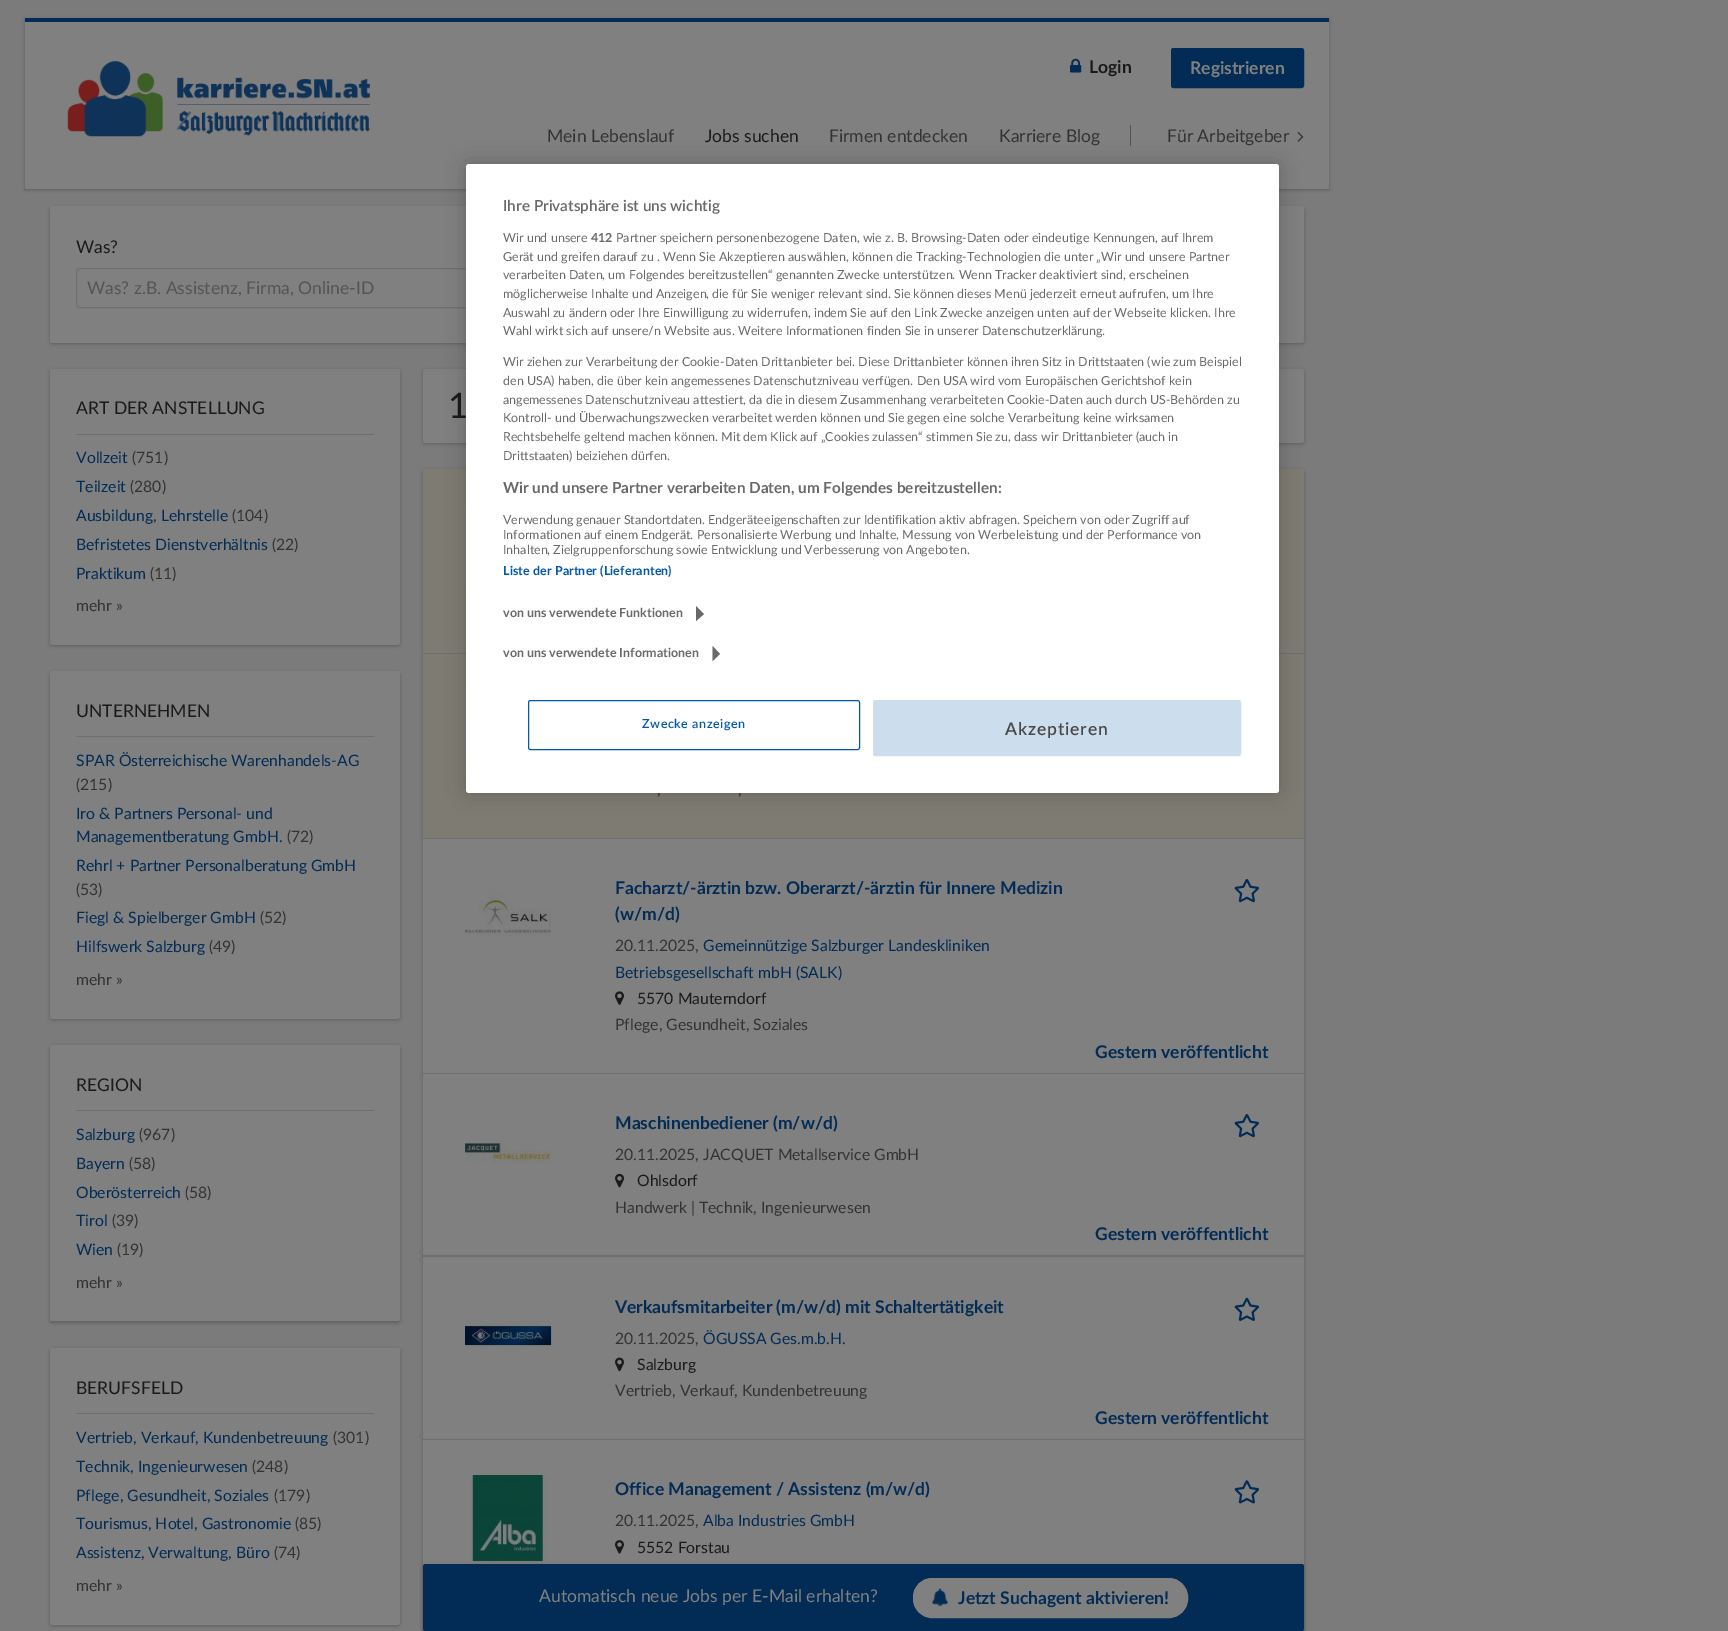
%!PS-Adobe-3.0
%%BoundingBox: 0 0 1728 1631
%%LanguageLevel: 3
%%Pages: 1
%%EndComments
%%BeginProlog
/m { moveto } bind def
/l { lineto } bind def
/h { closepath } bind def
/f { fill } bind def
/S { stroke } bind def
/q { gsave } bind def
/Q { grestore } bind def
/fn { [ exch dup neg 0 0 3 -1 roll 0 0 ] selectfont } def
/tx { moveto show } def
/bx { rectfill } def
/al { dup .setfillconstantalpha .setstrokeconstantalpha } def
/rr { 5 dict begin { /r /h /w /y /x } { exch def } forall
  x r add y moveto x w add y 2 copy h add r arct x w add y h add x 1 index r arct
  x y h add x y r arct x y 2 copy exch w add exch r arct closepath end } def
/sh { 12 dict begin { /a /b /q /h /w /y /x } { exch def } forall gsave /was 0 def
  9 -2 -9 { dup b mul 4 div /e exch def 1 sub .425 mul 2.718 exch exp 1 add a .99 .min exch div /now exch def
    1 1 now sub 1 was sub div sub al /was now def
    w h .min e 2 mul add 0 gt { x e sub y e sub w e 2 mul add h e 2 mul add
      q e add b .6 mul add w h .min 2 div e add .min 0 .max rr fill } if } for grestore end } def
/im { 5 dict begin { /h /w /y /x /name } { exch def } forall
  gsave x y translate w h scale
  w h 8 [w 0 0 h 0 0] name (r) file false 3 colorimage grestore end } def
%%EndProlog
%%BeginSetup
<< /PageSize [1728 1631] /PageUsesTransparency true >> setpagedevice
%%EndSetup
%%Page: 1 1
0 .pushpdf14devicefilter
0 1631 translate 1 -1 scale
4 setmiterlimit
0.482 setgray
0 0 1728 1631 bx
0 setgray
25 19 1304 171 0 2 0.25 sh
0.502 setgray
25 22 1304 167 bx
0.008 0.173 0.333 setrgbcolor
25 18 1304 4 bx
(image0.raw) 67 61 303 76 im
(image1.raw) 1070 58 12 15 im
/Lato-Bold 17.5 fn
0.102 setgray
(Login) 1089 73 tx
0.008 0.173 0.333 setrgbcolor
1171.5 48.5 132 39 2 rr q f Q
S
0.502 setgray
(Registrieren) 1190 74 tx
/Lato-Regular 17.5 fn
0.2 setgray
(Mein Lebenslauf) 547 142 tx
0.102 setgray
(Jobs suchen) 705 142 tx
0.2 setgray
(Firmen entdecken) 829 142 tx
(Karriere Blog) 999 142 tx
0.329 setgray
1130 125 1 21 bx
0.2 setgray
(Für Arbeitgeber) 1167 142 tx
(image2.raw) 1297 132 7 10 im
0 setgray
50 208 1254 136 2.5 2 0.25 sh
0.502 setgray
50 206 1254 137 2.5 rr f
0.102 setgray
(Was?) 76 253 tx
0.435 setgray
76.5 268.5 488 39 3.5 rr S
0.329 setgray
(Was? z.B. Assistenz, Firma, Online-ID) 87 294 tx
0 setgray
50 370 350 276 2.5 2 0.25 sh
0.502 setgray
50 369 350 276 2.5 rr f
0.435 setgray
76 434 298 1 bx
0.102 setgray
(ART DER ANSTELLUNG) 76 414 tx
/Lato-Regular 15.75 fn
0.008 0.173 0.333 setrgbcolor
(Vollzeit) 76 463 tx
0.2 setgray
(\(751\)) 132 463 tx
0.008 0.173 0.333 setrgbcolor
(Teilzeit) 76 492 tx
0.2 setgray
(\(280\)) 130 492 tx
0.008 0.173 0.333 setrgbcolor
(Ausbildung, Lehrstelle) 76 521 tx
0.2 setgray
(\(104\)) 232 521 tx
0.008 0.173 0.333 setrgbcolor
(Befristetes Dienstverhältnis) 76 550 tx
0.2 setgray
(\(22\)) 272 550 tx
0.008 0.173 0.333 setrgbcolor
(Praktikum) 76 579 tx
0.2 setgray
(\(11\)) 150 579 tx
(mehr ») 76 611 tx
0 setgray
50 673 350 347 2.5 2 0.25 sh
0.502 setgray
50 671 350 348 2.5 rr f
0.435 setgray
76 736 298 1 bx
/Lato-Regular 17.5 fn
0.102 setgray
(UNTERNEHMEN) 76 717 tx
/Lato-Regular 15.75 fn
0.008 0.173 0.333 setrgbcolor
(SPAR Österreichische Warenhandels-AG) 76 766 tx
0.2 setgray
(\(215\)) 76 790 tx
0.008 0.173 0.333 setrgbcolor
(Iro & Partners Personal- und) 76 819 tx
(Managementberatung GmbH.) 76 842 tx
0.2 setgray
(\(72\)) 287 842 tx
0.008 0.173 0.333 setrgbcolor
(Rehrl + Partner Personalberatung GmbH) 76 871 tx
0.2 setgray
(\(53\)) 76 895 tx
0.008 0.173 0.333 setrgbcolor
(Fiegl & Spielberger GmbH) 76 923 tx
0.2 setgray
(\(52\)) 260 923 tx
0.008 0.173 0.333 setrgbcolor
(Hilfswerk Salzburg) 76 952 tx
0.2 setgray
(\(49\)) 209 952 tx
(mehr ») 76 985 tx
0 setgray
50 1046 350 277 2.5 2 0.25 sh
0.502 setgray
50 1045 350 276 2.5 rr f
0.435 setgray
76 1110 298 1 bx
/Lato-Regular 17.5 fn
0.102 setgray
(REGION) 76 1091 tx
/Lato-Regular 15.75 fn
0.008 0.173 0.333 setrgbcolor
(Salzburg) 76 1140 tx
0.2 setgray
(\(967\)) 139 1140 tx
0.008 0.173 0.333 setrgbcolor
(Bayern) 76 1169 tx
0.2 setgray
(\(58\)) 129 1169 tx
0.008 0.173 0.333 setrgbcolor
(Oberösterreich) 76 1198 tx
0.2 setgray
(\(58\)) 185 1198 tx
0.008 0.173 0.333 setrgbcolor
(Tirol) 76 1226 tx
0.2 setgray
(\(39\)) 112 1226 tx
0.008 0.173 0.333 setrgbcolor
(Wien) 76 1255 tx
0.2 setgray
(\(19\)) 117 1255 tx
(mehr ») 76 1288 tx
0 setgray
50 1349 350 277 2.5 2 0.25 sh
0.502 setgray
50 1348 350 277 2.5 rr f
0.435 setgray
76 1413 298 1 bx
/Lato-Regular 17.5 fn
0.102 setgray
(BERUFSFELD) 76 1394 tx
/Lato-Regular 15.75 fn
0.008 0.173 0.333 setrgbcolor
(Vertrieb, Verkauf, Kundenbetreuung) 76 1443 tx
0.2 setgray
(\(301\)) 333 1443 tx
0.008 0.173 0.333 setrgbcolor
(Technik, Ingenieurwesen) 76 1472 tx
0.2 setgray
(\(248\)) 252 1472 tx
0.008 0.173 0.333 setrgbcolor
(Pflege, Gesundheit, Soziales) 76 1501 tx
0.2 setgray
(\(179\)) 274 1501 tx
0.008 0.173 0.333 setrgbcolor
(Tourismus, Hotel, Gastronomie) 76 1529 tx
0.2 setgray
(\(85\)) 295 1529 tx
0.008 0.173 0.333 setrgbcolor
(Assistenz, Verwaltung, Büro) 76 1558 tx
0.2 setgray
(\(74\)) 274 1558 tx
(mehr ») 76 1591 tx
0 setgray
423 370 881 74 2.5 2 0.25 sh
0.502 setgray
423 369 881 74 2.5 rr f
/Lato-Regular 35 fn
0.102 setgray
(1) 448 418 tx
0 setgray
423 470 881 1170 2.5 2 0.25 sh
0.502 setgray
423 839 881 792 bx
0.494 0.486 0.447 setrgbcolor
423 469 881 184 bx
(image3.raw) 465 505 1 83 im
0.435 setgray
423 653 881 1 bx
0.494 0.486 0.447 setrgbcolor
423 654 881 184 bx
(image4.raw) 465 690 1 83 im
/Lato-Regular 15.75 fn
0.2 setgray
(,) 657 795 tx
(,) 738 795 tx
0.435 setgray
423 838 881 1 bx
(image5.raw) 465 887 86 49 im
/Lato-Bold 17.5 fn
0.008 0.173 0.333 setrgbcolor
(Facharzt/-ärztin bzw. Oberarzt/-ärztin für Innere Medizin) 615 894 tx
(\(w/m/d\)) 615 920 tx
/Lato-Regular 15.75 fn
0.2 setgray
(20.11.2025,) 615 951 tx
0.008 0.173 0.333 setrgbcolor
(Gemeinnützige Salzburger Landeskliniken) 703 951 tx
(Betriebsgesellschaft mbH \(SALK\)) 615 978 tx
(image6.raw) 615 991 9 14 im
0.102 setgray
(5570 Mauterndorf) 637 1004 tx
0.2 setgray
(Pflege, Gesundheit, Soziales) 615 1030 tx
(image7.raw) 1234 879 25 24 im
/Lato-Bold 17.5 fn
0.008 0.173 0.333 setrgbcolor
(Gestern veröffentlicht) 1095 1058 tx
0.435 setgray
423 1073 881 1 bx
(image8.raw) 465 1141 86 24 im
0.008 0.173 0.333 setrgbcolor
(Maschinenbediener \(m/w/d\)) 615 1129 tx
/Lato-Regular 15.75 fn
0.2 setgray
(20.11.2025, JACQUET Metallservice GmbH) 615 1160 tx
(image9.raw) 615 1173 9 15 im
0.102 setgray
(Ohlsdorf) 637 1186 tx
0.2 setgray
(Handwerk | Technik, Ingenieurwesen) 615 1213 tx
(image7.raw) 1234 1114 25 24 im
/Lato-Bold 17.5 fn
0.008 0.173 0.333 setrgbcolor
(Gestern veröffentlicht) 1095 1240 tx
0.435 setgray
423 1255 881 2 bx
(image10.raw) 465 1320 87 28 im
0.008 0.173 0.333 setrgbcolor
(Verkaufsmitarbeiter \(m/w/d\) mit Schaltertätigkeit) 615 1313 tx
/Lato-Regular 15.75 fn
0.2 setgray
(20.11.2025,) 615 1344 tx
0.008 0.173 0.333 setrgbcolor
(ÖGUSSA Ges.m.b.H.) 703 1344 tx
(image11.raw) 615 1357 9 15 im
0.102 setgray
(Salzburg) 637 1370 tx
0.2 setgray
(Vertrieb, Verkauf, Kundenbetreuung) 615 1396 tx
(image12.raw) 1234 1297 25 24 im
/Lato-Bold 17.5 fn
0.008 0.173 0.333 setrgbcolor
(Gestern veröffentlicht) 1095 1424 tx
0.435 setgray
423 1439 881 1 bx
(image13.raw) 471 1475 77 87 im
0.008 0.173 0.333 setrgbcolor
(Office Management / Assistenz \(m/w/d\)) 615 1495 tx
/Lato-Regular 15.75 fn
0.2 setgray
(20.11.2025,) 615 1526 tx
0.008 0.173 0.333 setrgbcolor
(Alba Industries GmbH) 703 1526 tx
(image14.raw) 615 1540 9 14 im
0.102 setgray
(5552 Forstau) 637 1553 tx
(image15.raw) 1234 1480 25 24 im
0 setgray
423 1565 881 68 2.5 2 0.25 sh
0.008 0.173 0.333 setrgbcolor
423 1564 881 67 2.5 rr f
/Lato-Regular 17.5 fn
0.502 setgray
(Automatisch neue Jobs per E-Mail erhalten?) 539 1602 tx
913.5 1578.5 274 39 18.5 rr q f Q
S
(image16.raw) 932 1588 17 19 im
/Lato-Bold 17.5 fn
0.008 0.173 0.333 setrgbcolor
(Jetzt Suchagent aktivieren!) 958 1604 tx
0 setgray
466 164 813 629 3 11 0.2 sh
1 setgray
466 164 813 629 3 rr f
/Lato-SemiBold 15.3 fn
0.412 setgray
(Ihre Privatsphäre ist uns wichtig) 503 211 tx
/Lato-Regular 12.45 fn
(Wir und unsere) 503 242 tx
/Lato-Bold 12.45 fn
(412) 591 242 tx
/Lato-Regular 12.45 fn
(Partner speichern personenbezogene Daten, wie z. B. Browsing-Daten oder eindeutige Kennungen, auf Ihrem) 616 242 tx
(Gerät und greifen darauf zu . Wenn Sie Akzeptieren auswählen, können die Tracking-Technologien die unter „Wir und unsere Partner) 503 261 tx
503 279 m -0.1 0 32 (verarbeiten Daten, um Folgendes bereitzustellen“ genannten Zwecke unterstützen. Wenn Tracker deaktiviert sind, erscheinen) widthshow
(möglicherweise Inhalte und Anzeigen, die für Sie weniger relevant sind. Sie können dieses Menü jederzeit erneut aufrufen, um Ihre) 503 298 tx
(Auswahl zu ändern oder Ihre Einwilligung zu widerrufen, indem Sie auf den Link Zwecke anzeigen unten auf der Webseite klicken. Ihre) 503 317 tx
(Wahl wirkt sich auf unsere/n Website aus. Weitere Informationen finden Sie in unserer Datenschutzerklärung.) 503 335 tx
(Wir ziehen zur Verarbeitung der Cookie-Daten Drittanbieter bei. Diese Drittanbieter können ihren Sitz in Drittstaaten \(wie zum Beispiel) 503 366 tx
(den USA\) haben, die über kein angemessenes Datenschutzniveau verfügen. Den USA wird vom Europäischen Gerichtshof kein) 503 385 tx
503 404 m -0.1 0 32 (angemessenes Datenschutzniveau attestiert, da die in diesem Zusammenhang verarbeiteten Cookie-Daten auch durch US-Behörden zu) widthshow
(Kontroll- und Überwachungszwecken verarbeitet werden können und Sie gegen eine solche Verarbeitung keine wirksamen) 503 422 tx
(Rechtsbehelfe geltend machen können. Mit dem Klick auf „Cookies zulassen“ stimmen Sie zu, dass wir Drittanbieter \(auch in) 503 441 tx
(Drittstaaten\) beiziehen dürfen.) 503 460 tx
/Lato-Bold 15.3 fn
(Wir und unsere Partner verarbeiten Daten, um Folgendes bereitzustellen:) 503 493 tx
/Lato-Regular 12.45 fn
503 524 m -0.1 0 32 (Verwendung genauer Standortdaten. Endgeräteeigenschaften zur Identifikation aktiv abfragen. Speichern von oder Zugriff auf) widthshow
(Informationen auf einem Endgerät. Personalisierte Werbung und Inhalte, Messung von Werbeleistung und der Performance von) 503 539 tx
503 554 m -0.25 0 32 (Inhalten, Zielgruppenforschung sowie Entwicklung und Verbesserung von Angeboten.) widthshow
/Lato-Bold 12.45 fn
0.012 0.345 0.663 setrgbcolor
503 575 m 0.1 0 (Liste der Partner \(Lieferanten\)) ashow
/Lato-Bold 12.5 fn
0.412 setgray
(von uns verwendete Funktionen) 503 617 tx
696 621 m 696 606 l 704 614 l h f
(von uns verwendete Informationen) 503 657 tx
712.5 661 m 712.5 646 l 720 654 l h f
0.012 0.345 0.663 setrgbcolor
528.5 700.5 331 49 2 rr S
/Lato-SemiBold 12.45 fn
642 728 m 0.6 0 (Zwecke anzeigen) ashow
0.8 0.867 0.933 setrgbcolor
873.5 700.5 367 55 2 rr q f Q
S
/Lato-SemiBold 17.5 fn
0.282 setgray
1005 735 m 0.9 0 (Akzeptieren) ashow
.poppdf14devicefilter showpage
%%EOF
